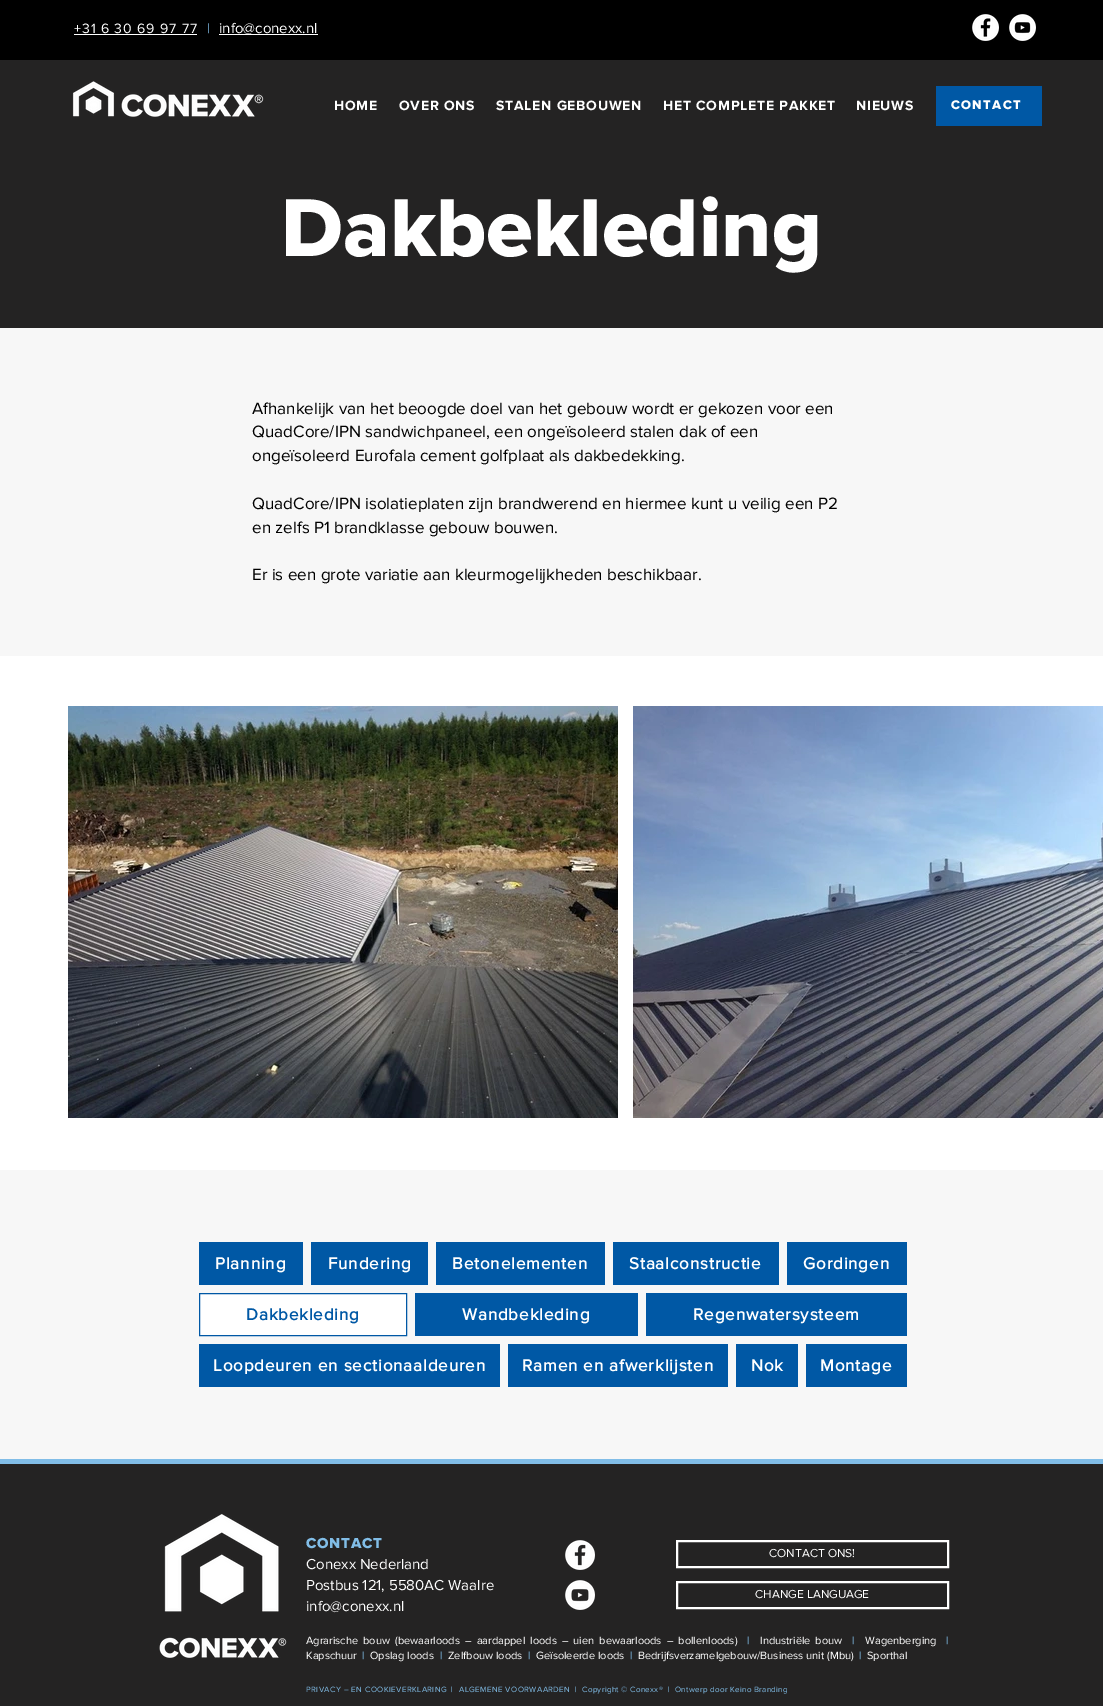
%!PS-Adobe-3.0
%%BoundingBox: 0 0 1103 1706
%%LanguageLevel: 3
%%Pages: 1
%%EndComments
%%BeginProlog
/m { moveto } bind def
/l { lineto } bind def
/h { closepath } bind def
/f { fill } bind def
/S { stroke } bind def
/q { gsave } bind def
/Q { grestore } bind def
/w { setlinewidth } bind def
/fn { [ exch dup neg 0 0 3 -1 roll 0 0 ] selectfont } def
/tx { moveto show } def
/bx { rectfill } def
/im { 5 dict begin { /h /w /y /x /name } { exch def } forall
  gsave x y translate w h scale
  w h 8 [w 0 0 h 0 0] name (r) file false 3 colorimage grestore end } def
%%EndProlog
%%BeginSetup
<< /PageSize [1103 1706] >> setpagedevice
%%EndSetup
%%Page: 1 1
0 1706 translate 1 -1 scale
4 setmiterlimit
1 setgray
0 0 1103 1706 bx
0 setgray
0 0 1103 60 bx
/ProximaNova-Regular 14 fn
1 setgray
74 33 m 0.9 0 (+31 6 30 69 97 77) ashow
74 34 123 1 bx
0.506 0.741 0.906 setrgbcolor
207 33 m 0.9 0 (|) ashow
1 setgray
219 34 99 1 bx
/ProximaNova-Regular 15 fn
(info@conexx.nl) 219 33 tx
(image0.raw) 972 14 27 27 im
(image1.raw) 1009 14 27 27 im
0.141 0.137 0.137 setrgbcolor
0 60 1103 268 bx
(image2.raw) 72 81 192 36 im
/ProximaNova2-Bold 14 fn
1 setgray
334 110 m 0.75 0 (HOME) ashow
399 110 m 0.75 0 (OVER ONS) ashow
496 110 m 0.75 0 (STALEN GEBOUWEN) ashow
663 110 m 0.75 0 (HET COMPLETE PAKKET) ashow
856 110 m 0.75 0 (NIEUWS) ashow
0 0.345 0.647 setrgbcolor
936 86 106 40 bx
/ProximaNova-ExtraBold 13 fn
1 setgray
951 109 m 1.25 0 (CONTACT) ashow
/ProximaNova-ExtraBold 85 fn
(Dakbekleding) 281 256 tx
0.969 setgray
0 328 1103 328 bx
/ProximaNova-Regular 17 fn
0 setgray
(Afhankelijk van het beoogde doel van het gebouw wordt er gekozen voor een) 252 414 tx
(QuadCore/IPN sandwichpaneel, een ongeïsoleerd stalen dak of een) 252 437 tx
(ongeïsoleerd Eurofala cement golfplaat als dakbedekking.) 252 461 tx
(QuadCore/IPN isolatieplaten zijn brandwerend en hiermee kunt u veilig een P2) 252 509 tx
(en zelfs P1 brandklasse gebouw bouwen.) 252 533 tx
(Er is een grote variatie aan kleurmogelijkheden beschikbaar.) 252 580 tx
(image3.raw) 68 706 550 412 im
(image4.raw) 633 706 470 412 im
0.969 setgray
0 1170 1103 289 bx
0 0.345 0.647 setrgbcolor
199 1242 104 43 bx
/ProximaNova-Bold 17 fn
1 setgray
215 1269 m 0.85 0 (Planning) ashow
0 0.345 0.647 setrgbcolor
311 1242 117 43 bx
1 setgray
328 1269 m 0.85 0 (Fundering) ashow
0 0.345 0.647 setrgbcolor
436 1242 169 43 bx
1 setgray
452 1269 m 0.85 0 (Betonelementen) ashow
0 0.345 0.647 setrgbcolor
613 1242 166 43 bx
1 setgray
629 1269 m 0.85 0 (Staalconstructie) ashow
0 0.345 0.647 setrgbcolor
787 1242 120 43 bx
1 setgray
803 1269 m 0.85 0 (Gordingen) ashow
199.5 1293.5 m 406.5 1293.5 l 406.5 1335.5 l 199.5 1335.5 l h q f Q
0 0.345 0.647 setrgbcolor
S
246 1320 m 0.85 0 (Dakbekleding) ashow
415 1293 223 43 bx
1 setgray
462 1320 m 0.85 0 (Wandbekleding) ashow
0 0.345 0.647 setrgbcolor
646 1293 261 43 bx
1 setgray
693 1320 m 0.85 0 (Regenwatersysteem) ashow
0 0.345 0.647 setrgbcolor
199 1344 301 43 bx
1 setgray
213 1371 m 0.85 0 (Loopdeuren en sectionaaldeuren) ashow
0 0.345 0.647 setrgbcolor
508 1344 220 43 bx
1 setgray
522 1371 m 0.85 0 (Ramen en afwerklijsten) ashow
0 0.345 0.647 setrgbcolor
736 1344 62 43 bx
1 setgray
751 1371 m 0.85 0 (Nok) ashow
0 0.345 0.647 setrgbcolor
806 1344 101 43 bx
1 setgray
820 1371 m 0.85 0 (Montage) ashow
0.506 0.741 0.906 setrgbcolor
0 1459 1103 5 bx
0.141 0.137 0.137 setrgbcolor
0 1464 1103 242 bx
(image5.raw) 164 1514 115 98 im
/ProximaNova-ExtraBold 15 fn
0.506 0.741 0.906 setrgbcolor
306 1548 m 0.75 0 (CONTACT) ashow
/ProximaNova-Regular 15 fn
1 setgray
(Conexx Nederland) 306 1569 tx
(Postbus 121, 5580AC Waalre) 306 1590 tx
(info@conexx.nl) 306 1611 tx
(image6.raw) 565 1540 30 30 im
(image7.raw) 565 1580 30 30 im
2 w
677 1541 271 26 rectstroke
/ProximaNova-Regular 12 fn
(CONTACT ONS!) 769 1557 tx
677 1582 271 26 rectstroke
(CHANGE LANGUAGE) 755 1598 tx
(image8.raw) 159 1637 128 21 im
/ProximaNova-Regular 11 fn
306 1644 m 2.25 0 32 (Agrarische bouw \(bewaarloods – aardappel loods – uien bewaarloods – bollenloods\)) widthshow
0.506 0.741 0.906 setrgbcolor
(|) 747 1644 tx
1 setgray
760 1644 m 2.25 0 32 (Industriële bouw) widthshow
0.506 0.741 0.906 setrgbcolor
(|) 852 1644 tx
1 setgray
(Wagenberging) 865 1644 tx
0.506 0.741 0.906 setrgbcolor
(|) 946 1644 tx
1 setgray
(Kapschuur) 306 1659 tx
0.506 0.741 0.906 setrgbcolor
(|) 362 1659 tx
1 setgray
(Opslag loods) 370 1659 tx
0.506 0.741 0.906 setrgbcolor
(|) 440 1659 tx
1 setgray
(Zelfbouw loods) 448 1659 tx
0.506 0.741 0.906 setrgbcolor
(|) 528 1659 tx
1 setgray
(Geïsoleerde loods) 536 1659 tx
0.506 0.741 0.906 setrgbcolor
(|) 630 1659 tx
1 setgray
(Bedrijfsverzamelgebouw/Business unit \(Mbu\)) 638 1659 tx
0.506 0.741 0.906 setrgbcolor
(|) 859 1659 tx
1 setgray
(Sporthal) 867 1659 tx
/ProximaNova-Regular 8 fn
0.506 0.741 0.906 setrgbcolor
306 1692 m 0.4 0 (PRIVACY – EN COOKIEVERKLARING) ashow
451 1692 m 0.4 0 (|) ashow
459 1692 m 0.4 0 (ALGEMENE VOORWAARDEN) ashow
575 1692 m 0.4 0 (|) ashow
582 1692 m 0.3 0 (Copyright © Conexx®  |) ashow
675 1692 m 0.3 0 (Ontwerp door Keino Branding) ashow
showpage
%%EOF
